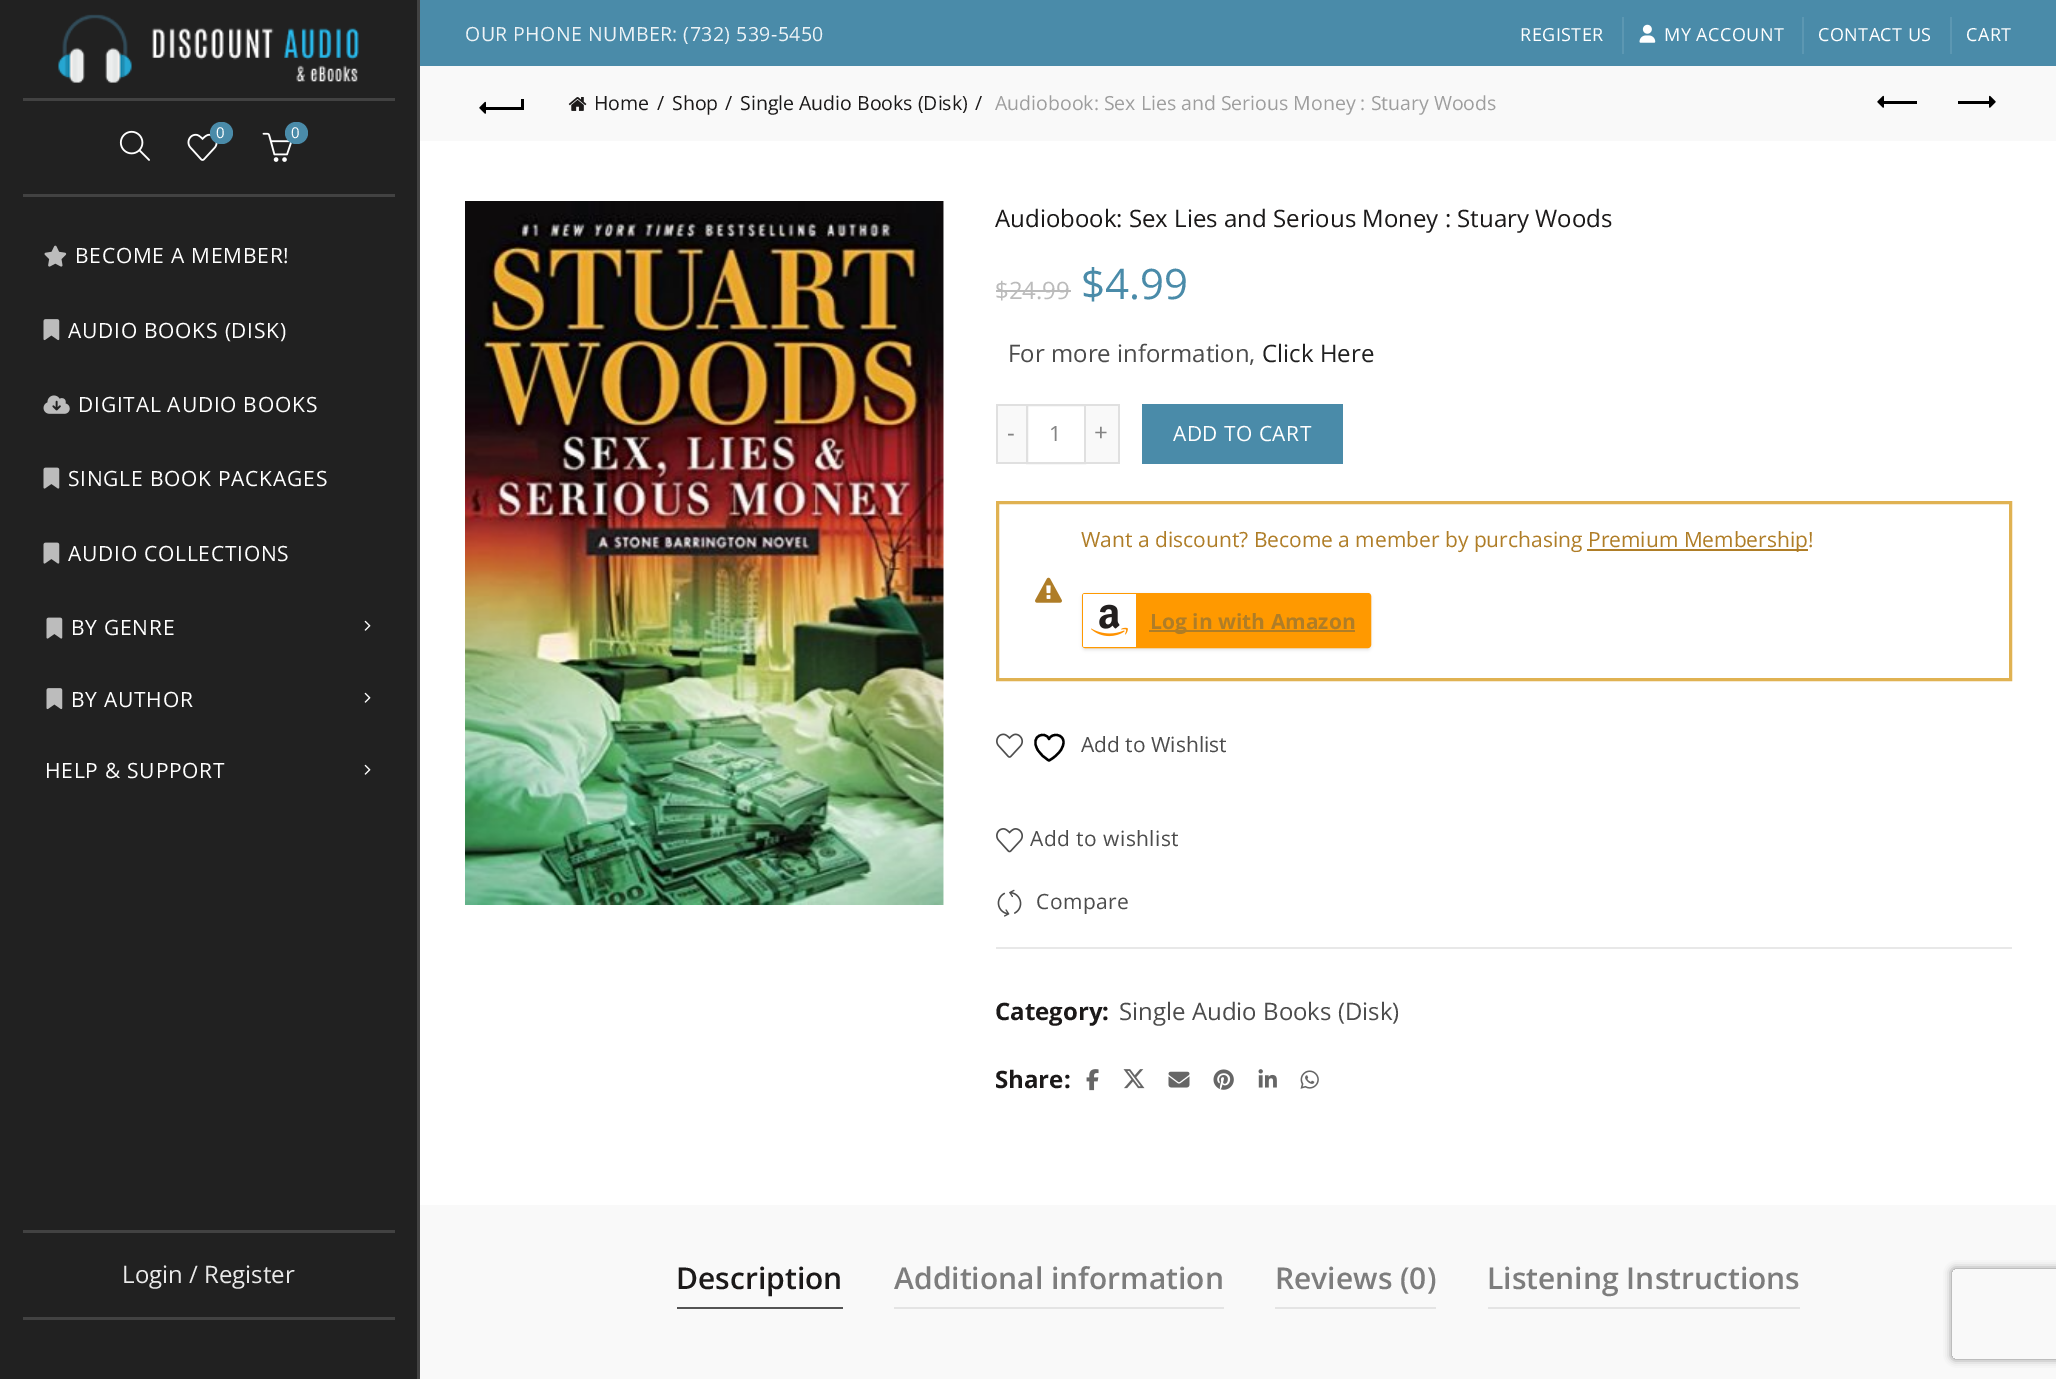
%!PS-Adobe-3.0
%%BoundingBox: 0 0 2056 1379
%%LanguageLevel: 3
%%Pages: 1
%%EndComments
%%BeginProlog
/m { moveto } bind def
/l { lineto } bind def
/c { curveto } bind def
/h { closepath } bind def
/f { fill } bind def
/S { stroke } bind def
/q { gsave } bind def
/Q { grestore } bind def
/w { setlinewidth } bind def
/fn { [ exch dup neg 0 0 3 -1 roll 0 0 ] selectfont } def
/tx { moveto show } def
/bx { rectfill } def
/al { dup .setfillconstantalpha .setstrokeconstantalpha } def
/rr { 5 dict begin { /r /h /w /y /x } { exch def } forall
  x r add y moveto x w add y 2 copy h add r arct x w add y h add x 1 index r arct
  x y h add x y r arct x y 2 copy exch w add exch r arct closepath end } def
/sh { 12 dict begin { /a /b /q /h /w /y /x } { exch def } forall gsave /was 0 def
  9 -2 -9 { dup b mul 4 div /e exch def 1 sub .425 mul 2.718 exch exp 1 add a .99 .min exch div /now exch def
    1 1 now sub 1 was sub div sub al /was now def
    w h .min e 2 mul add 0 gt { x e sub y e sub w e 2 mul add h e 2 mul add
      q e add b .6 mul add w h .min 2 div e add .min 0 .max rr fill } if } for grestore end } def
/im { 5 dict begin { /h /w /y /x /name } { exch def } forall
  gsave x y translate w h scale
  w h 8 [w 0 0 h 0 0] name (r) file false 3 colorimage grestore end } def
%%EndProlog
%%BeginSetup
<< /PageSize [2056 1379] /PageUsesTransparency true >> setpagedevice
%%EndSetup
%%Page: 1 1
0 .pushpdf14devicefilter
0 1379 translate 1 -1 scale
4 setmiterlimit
1 setgray
0 0 2056 1379 bx
0.29 0.545 0.663 setrgbcolor
420 0 1636 66 bx
/OpenSans-Regular 19.5 fn
0.929 0.953 0.965 setrgbcolor
465 41 m 0.45 0 (OUR PHONE NUMBER: \(732\) 539-5450) ashow
/OpenSans-Regular 18 fn
1 setgray
1520 41 m 0.45 0 (REGISTER) ashow
0.361 0.592 0.698 setrgbcolor
1622 17 2 37 bx
(image0.raw) 1639 24 17 19 im
1 setgray
1664 41 m 0.45 0 (MY ACCOUNT) ashow
0.361 0.592 0.698 setrgbcolor
1802 17 2 37 bx
1 setgray
1818 41 m 0.45 0 (CONTACT US) ashow
0.361 0.592 0.698 setrgbcolor
1950 17 2 37 bx
1 setgray
1966 41 m 0.45 0 (CART) ashow
0.129 setgray
0 0 417 1379 bx
0.259 setgray
417 0 3 1379 bx
(image1.raw) 58 14 301 69 im
23 98 372 3 bx
23 194 372 3 bx
(image2.raw) 119 130 31 31 im
(image3.raw) 187 133 31 28 im
0.29 0.545 0.663 setrgbcolor
210 122 23 22 11 rr f
/OpenSans-Regular 15 fn
1 setgray
(0) 216 138 tx
(image4.raw) 262 132 30 30 im
0.29 0.545 0.663 setrgbcolor
285 122 23 22 11 rr f
1 setgray
(0) 291 138 tx
(image5.raw) 44 245 23 22 im
/OpenSans-Regular 21 fn
75 263 m 0.75 0 (BECOME A MEMBER!) ashow
(image6.raw) 43 319 17 22 im
68 338 m 0.75 0 (AUDIO BOOKS \(DISK\)) ashow
(image7.raw) 43 395 27 19 im
78 412 m 0.75 0 (DIGITAL AUDIO BOOKS) ashow
(image8.raw) 43 467 17 22 im
68 486 m 0.75 0 (SINGLE BOOK PACKAGES) ashow
(image8.raw) 43 542 17 22 im
68 561 m 0.75 0 (AUDIO COLLECTIONS) ashow
(image8.raw) 46 617 17 22 im
71 635 m 0.75 0 (BY GENRE) ashow
(image9.raw) 364 620 7 11 im
(image6.raw) 46 688 17 22 im
71 707 m 0.75 0 (BY AUTHOR) ashow
(image9.raw) 364 692 7 11 im
45 778 m 0.75 0 (HELP & SUPPORT) ashow
(image9.raw) 364 764 7 11 im
0.259 setgray
23 1230 372 3 bx
23 1317 372 3 bx
/OpenSans-Regular 24 fn
0.914 setgray
(Login / Register) 122 1283 tx
0.976 setgray
420 66 1636 75 bx
0 setgray
485 107 37 3 bx
(image10.raw) 479 101 7 13 im
521 99 3 11 bx
(image11.raw) 568 97 19 14 im
/OpenSans-Regular 19.5 fn
0.106 0.098 0.098 setrgbcolor
(Home) 594 110 tx
(/) 657 110 tx
(Shop) 672 110 tx
(/) 725 110 tx
(Single Audio Books \(Disk\)) 740 110 tx
(/) 975 110 tx
0.62 setgray
(Audiobook: Sex Lies and Serious Money : Stuary Woods) 995 110 tx
0 setgray
1883 101 34 3 bx
(image10.raw) 1877 95 7 13 im
1958 101 34 3 bx
(image12.raw) 1989 95 7 13 im
(image13.raw) 465 201 479 704 im
/OpenSans-Regular 24 fn
0.106 0.098 0.098 setrgbcolor
(Audiobook: Sex Lies and Serious Money : Stuary Woods) 995 227 tx
0.733 setgray
($24.99) 995 299 tx
996 290 75 2 bx
/OpenSans-Regular 42 fn
0.29 0.545 0.663 setrgbcolor
($4.99) 1081 299 tx
/OpenSans-Regular 24 fn
0.298 setgray
(For more information,) 1008 362 tx
0.125 setgray
(Click Here) 1262 362 tx
0.976 setgray
998 406 28 56 bx
0.878 setgray
996 404 30 2 bx
996 462 30 2 bx
996 404 2 60 bx
0.518 setgray
(-) 1007 441 tx
0.878 setgray
2 w
1027 405 58 58 rectstroke
/OpenSans-Regular 21 fn
0.518 setgray
(1) 1049 441 tx
0.976 setgray
1086 406 32 56 bx
0.878 setgray
1086 404 33 2 bx
1118 404 2 60 bx
1086 462 33 2 bx
/OpenSans-Regular 24 fn
0.518 setgray
(+) 1094 441 tx
0.29 0.545 0.663 setrgbcolor
1142 404 201 60 bx
/OpenSans-Regular 21 fn
1 setgray
1173 441 m 0.45 0 (ADD TO CART) ashow
0.878 0.698 0.322 setrgbcolor
3 w
997.5 502.5 1013 177 rectstroke
0.686 0.49 0.153 setrgbcolor
(Want a discount? Become a member by purchasing) 1081 547 tx
1587 549 221 2 bx
(Premium Membership!) 1588 547 tx
(image14.raw) 1035 577 27 26 im
0 setgray
1082 594 289 56 3 1.5 0.1 sh
1 0.6 0 setrgbcolor
1083 594 287 53 2 rr q f Q
2 w
S
1 setgray
1084.5 594 m 1136 594 l 1136 647 l 1084.5 647 l 1083.5 647 1083 646.5 1083 645.5 c 1083 595.5 l 1083 594.5 1083.5 594 1084.5 594 c h f
(image15.raw) 1091 604 37 33 im
0.686 0.49 0.153 setrgbcolor
1149 630 206 2 bx
/OpenSans-Bold 21 fn
(Log in with Amazon) 1150 629 tx
(image16.raw) 996 733 28 25 im
0 setgray
2.3 w
1 setlinecap
1 setlinejoin
1063.5 742 m 1063.5 734 1052 732.5 1049 739 c 1045.5 730.5 1029.5 735.5 1037.5 749.5 c 1040 754 1044.5 758 1049 760.5 c 1049 760.5 1063.5 753 1063.5 742 c h S
/OpenSans-Regular 21 fn
0.298 setgray
(Add to Wishlist) 1081 752 tx
(image17.raw) 996 828 27 25 im
1030 846 m 0.45 0 (Add to wishlist) ashow
(image18.raw) 997 889 25 28 im
1036 909 m 0.45 0 (Compare) ashow
0.91 setgray
996 947 1016 2 bx
/OpenSans-Bold 24 fn
0.106 0.098 0.098 setrgbcolor
(Category:) 995 1020 tx
/OpenSans-Regular 24 fn
0.298 setgray
(Single Audio Books \(Disk\)) 1119 1020 tx
/OpenSans-Bold 24 fn
0.106 0.098 0.098 setrgbcolor
(Share:) 995 1088 tx
(image19.raw) 1086 1069 13 22 im
(image20.raw) 1123 1069 22 20 im
(image21.raw) 1168 1071 22 17 im
(image22.raw) 1213 1069 21 21 im
(image23.raw) 1258 1069 19 19 im
(image24.raw) 1300 1070 19 19 im
0.976 setgray
420 1205 1636 174 bx
0.329 setgray
677 1307 166 2 bx
/OpenSans-SemiBold 30 fn
0.106 0.098 0.098 setrgbcolor
(Description) 676 1289 tx
0.894 setgray
894 1307 330 2 bx
0.49 setgray
(Additional information) 894 1289 tx
0.894 setgray
1275 1307 161 2 bx
0.49 setgray
(Reviews \(0\)) 1275 1289 tx
0.894 setgray
1488 1307 312 2 bx
0.49 setgray
(Listening Instructions) 1487 1289 tx
q
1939 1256 m 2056 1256 l 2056 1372 l 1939 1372 l h 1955 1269 m 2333 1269 l 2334.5 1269 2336 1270.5 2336 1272 c 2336 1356 l 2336 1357.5 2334.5 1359 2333 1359 c 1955 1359 l 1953.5 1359 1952 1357.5 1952 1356 c 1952 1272 l 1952 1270.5 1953.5 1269 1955 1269 c h eoclip newpath
0.502 setgray
1952 1269 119 90 3 4 1 sh
Q
.poppdf14devicefilter showpage
%%EOF
